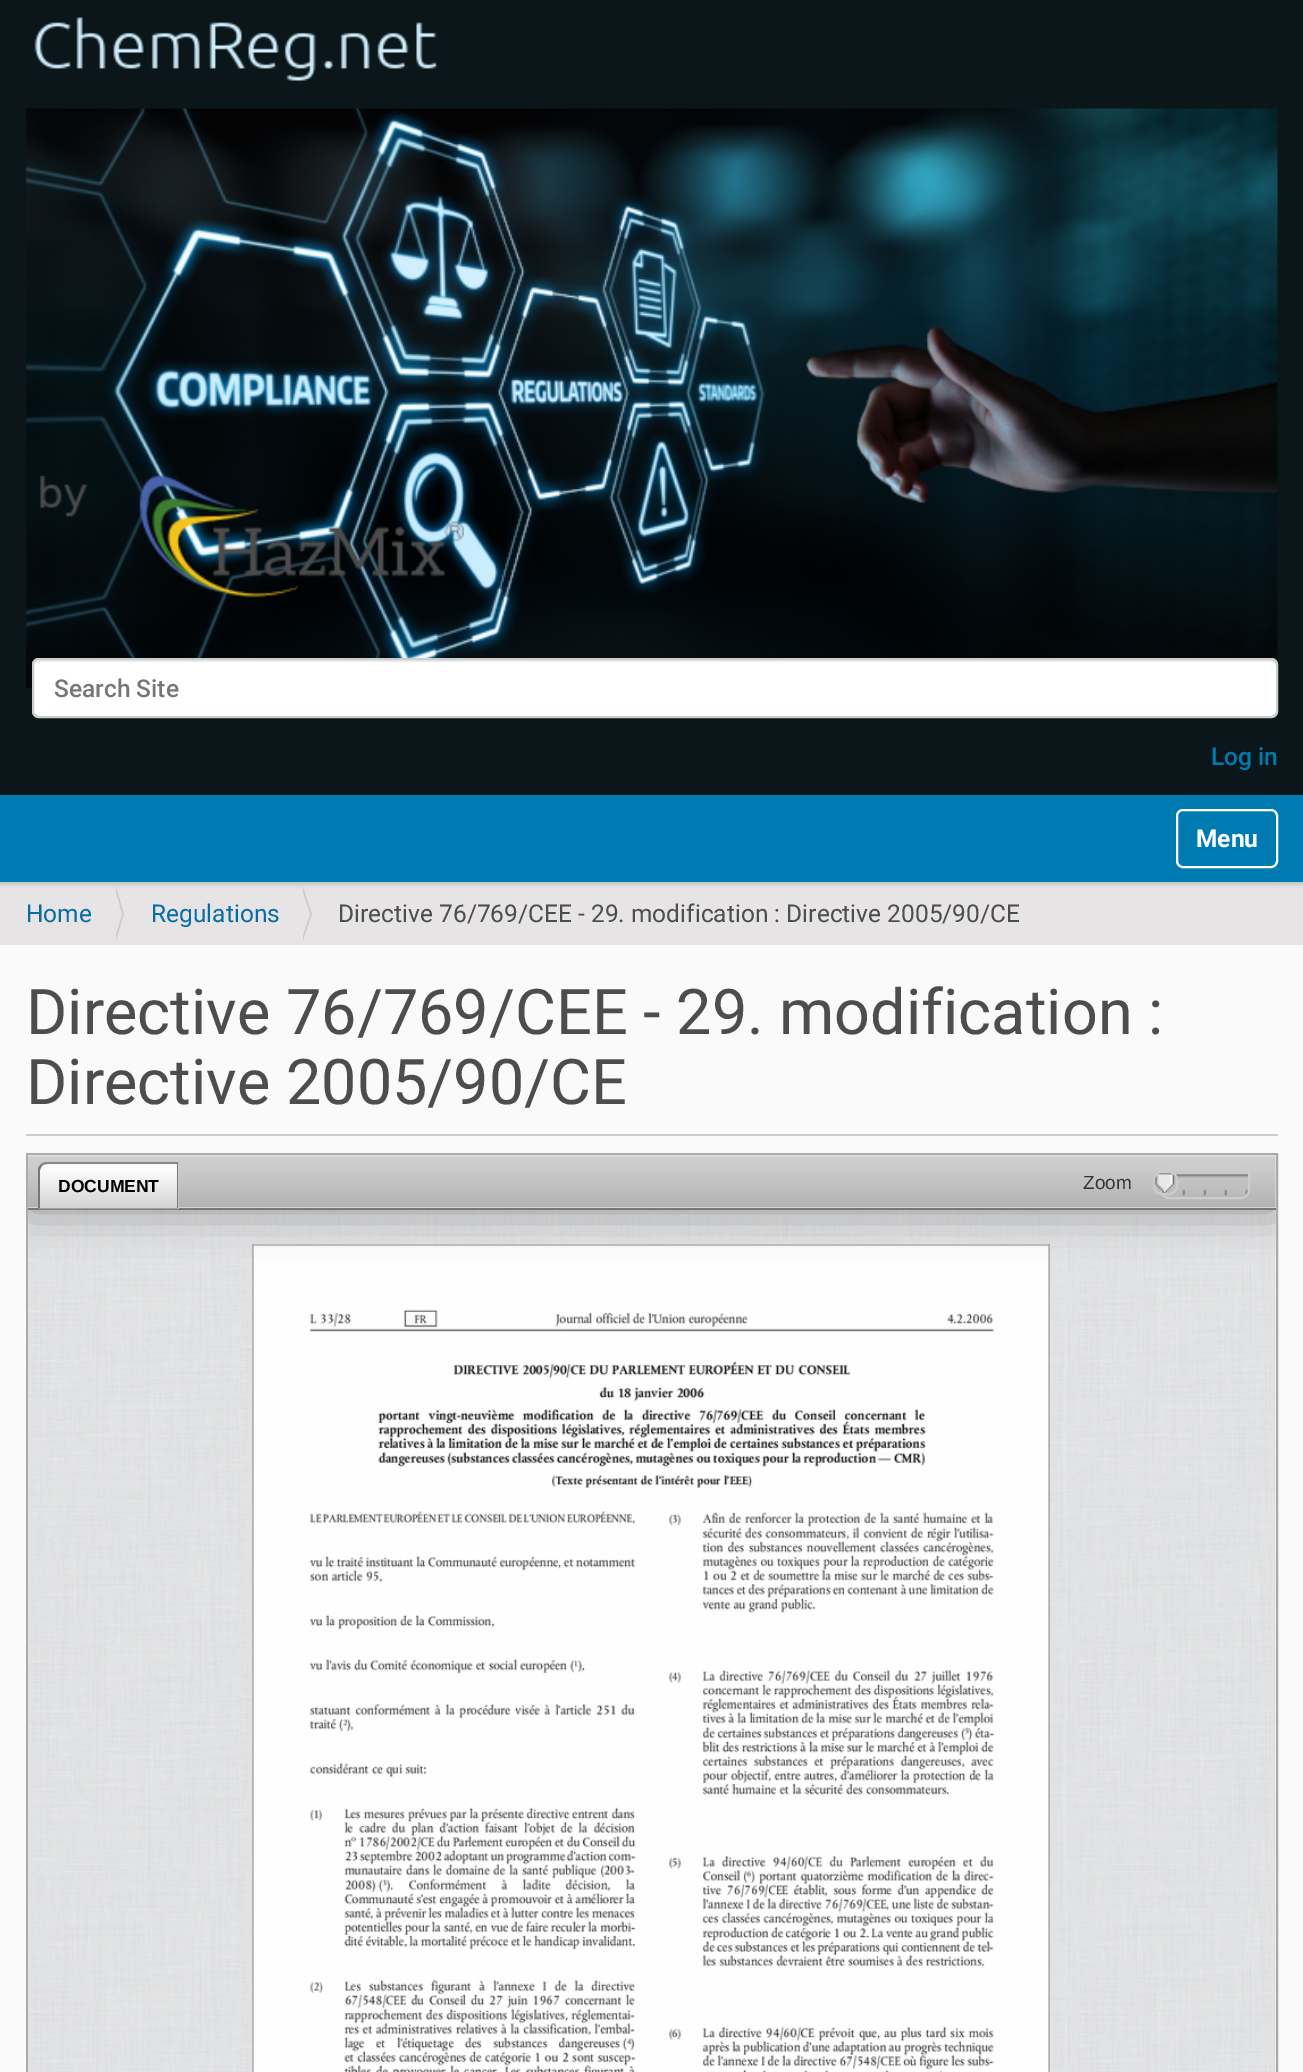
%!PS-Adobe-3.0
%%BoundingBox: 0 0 1303 2072
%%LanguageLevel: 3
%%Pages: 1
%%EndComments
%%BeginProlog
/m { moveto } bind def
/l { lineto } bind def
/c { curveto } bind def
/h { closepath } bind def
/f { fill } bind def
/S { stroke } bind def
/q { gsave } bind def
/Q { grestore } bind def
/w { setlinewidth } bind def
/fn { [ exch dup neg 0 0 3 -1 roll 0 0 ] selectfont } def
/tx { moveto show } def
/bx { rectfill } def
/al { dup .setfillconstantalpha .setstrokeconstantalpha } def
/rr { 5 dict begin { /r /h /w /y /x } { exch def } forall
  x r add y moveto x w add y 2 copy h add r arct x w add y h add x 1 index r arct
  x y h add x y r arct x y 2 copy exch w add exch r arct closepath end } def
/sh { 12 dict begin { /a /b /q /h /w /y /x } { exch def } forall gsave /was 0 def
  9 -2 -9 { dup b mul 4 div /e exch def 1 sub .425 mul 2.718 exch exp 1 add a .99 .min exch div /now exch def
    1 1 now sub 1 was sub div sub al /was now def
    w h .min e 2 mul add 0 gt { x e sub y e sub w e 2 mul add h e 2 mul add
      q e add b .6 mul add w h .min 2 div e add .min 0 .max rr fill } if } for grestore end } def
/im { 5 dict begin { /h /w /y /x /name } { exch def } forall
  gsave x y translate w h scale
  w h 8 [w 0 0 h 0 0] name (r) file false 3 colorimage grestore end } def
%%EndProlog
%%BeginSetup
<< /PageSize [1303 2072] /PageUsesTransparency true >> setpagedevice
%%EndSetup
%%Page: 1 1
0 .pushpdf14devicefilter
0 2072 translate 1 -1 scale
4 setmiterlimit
0.98 setgray
0 0 1303 2072 bx
0.043 0.086 0.102 setrgbcolor
0 0 1303 795 bx
(image0.raw) 26 108 1252 580 im
(image1.raw) 34 17 430 581 im
1 setgray
32 658 1246 60 7 rr f
0.925 setgray
38 662 m 1270 662 l 1273 662 1276 664 1276 667 c 1276 665 l 1276 662 1274 660 1271 660 c 38 660 l 35 660 33 662 33 665 c 33 667 l 33 664 36 662 38 662 c h f
0.8 setgray
2 w
33 659 1244 58 6 rr S
/Roboto-Medium 24.5 fn
0.467 setgray
(Search Site) 54 697 tx
0 0.482 0.694 setrgbcolor
(Log in) 1211 765 tx
0.902 0.894 0.894 setrgbcolor
0 882 1303 63 bx
0 setgray
0 796 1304 88 0 2.5 0.17 sh
0 0.482 0.694 setrgbcolor
0 795 1303 87 bx
1 setgray
1177 810 100 57 6 rr S
/Roboto-Bold 24.5 fn
(Menu) 1196 847 tx
/Roboto-Regular 24.5 fn
0.031 0.424 0.639 setrgbcolor
(Home) 26 922 tx
0.8 setgray
116 940 m 116 887 l 124 914 l h f
0.902 0.894 0.894 setrgbcolor
114 940 m 114 887 l 122 914 l h f
0.031 0.424 0.639 setrgbcolor
(Regulations) 151 922 tx
0.8 setgray
303 940 m 303 887 l 312 914 l h f
0.902 0.894 0.894 setrgbcolor
301 940 m 301 887 l 310 914 l h f
0.302 setgray
(Directive 76/769/CEE - 29. modification : Directive 2005/90/CE) 338 922 tx
0.8 setgray
26 1134 1252 2 bx
/Roboto-Regular 63 fn
0.302 setgray
(Directive 76/769/CEE - 29. modification :) 26 1034 tx
(Directive 2005/90/CE) 26 1104 tx
0.667 setgray
27 1154 1250 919 rectstroke
0.961 0.965 0.969 setrgbcolor
1275 1210 1 862 bx
(image6.raw) 28 1210 1248 862 im
240 1244 826 828 bx
(image7.raw) 240 1244 826 828 im
0.753 setgray
252 1244 798 2 bx
0.69 setgray
1048 1244 2 828 bx
252 1244 2 828 bx
(image8.raw) 253 1246 796 826 im
q
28 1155 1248 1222 rectclip
0 setgray
28 1155 1248 54 0 22 0.35 sh
Q
0.467 setgray
28 1208 1248 2 bx
(image2.raw) 28 1155 1248 53 im
0.749 setgray
48 1162 m 179 1162 l 179 1209 l 39 1209 l 39 1171 l 39 1166 43 1162 48 1162 c h f
(image3.raw) 38 1163 141 47 im
0.533 setgray
47 1162 m 45 1162 42 1163 41 1164 c 42 1166 l 43 1165 45 1164 47 1164 c 176 1164 l 178 1162 l h f
0.467 setgray
178 1162 m 178 1209 l 177 1208 l 177 1164 l 176 1164 l h f
0.627 setgray
178 1209 m 39 1209 l 40 1208 l 177 1208 l h f
0.467 setgray
38 1168 m 41 1164 l 42 1166 l 41 1167 40 1169 40 1171 c 40 1208 l 38 1209 l h f
/LiberationSans-Bold 17.5 fn
0 setgray
(DOCUMENT) 58 1192 tx
/LiberationSans-Regular 19 fn
0.2 setgray
(Zoom) 1083 1189 tx
(image4.raw) 1161 1174 87 22 im
0.8 setgray
1161 1161 88 37 8 rr S
(image5.raw) 1155 1172 20 21 im
1154 1172 23 22 8 rr S
.poppdf14devicefilter showpage
%%EOF
